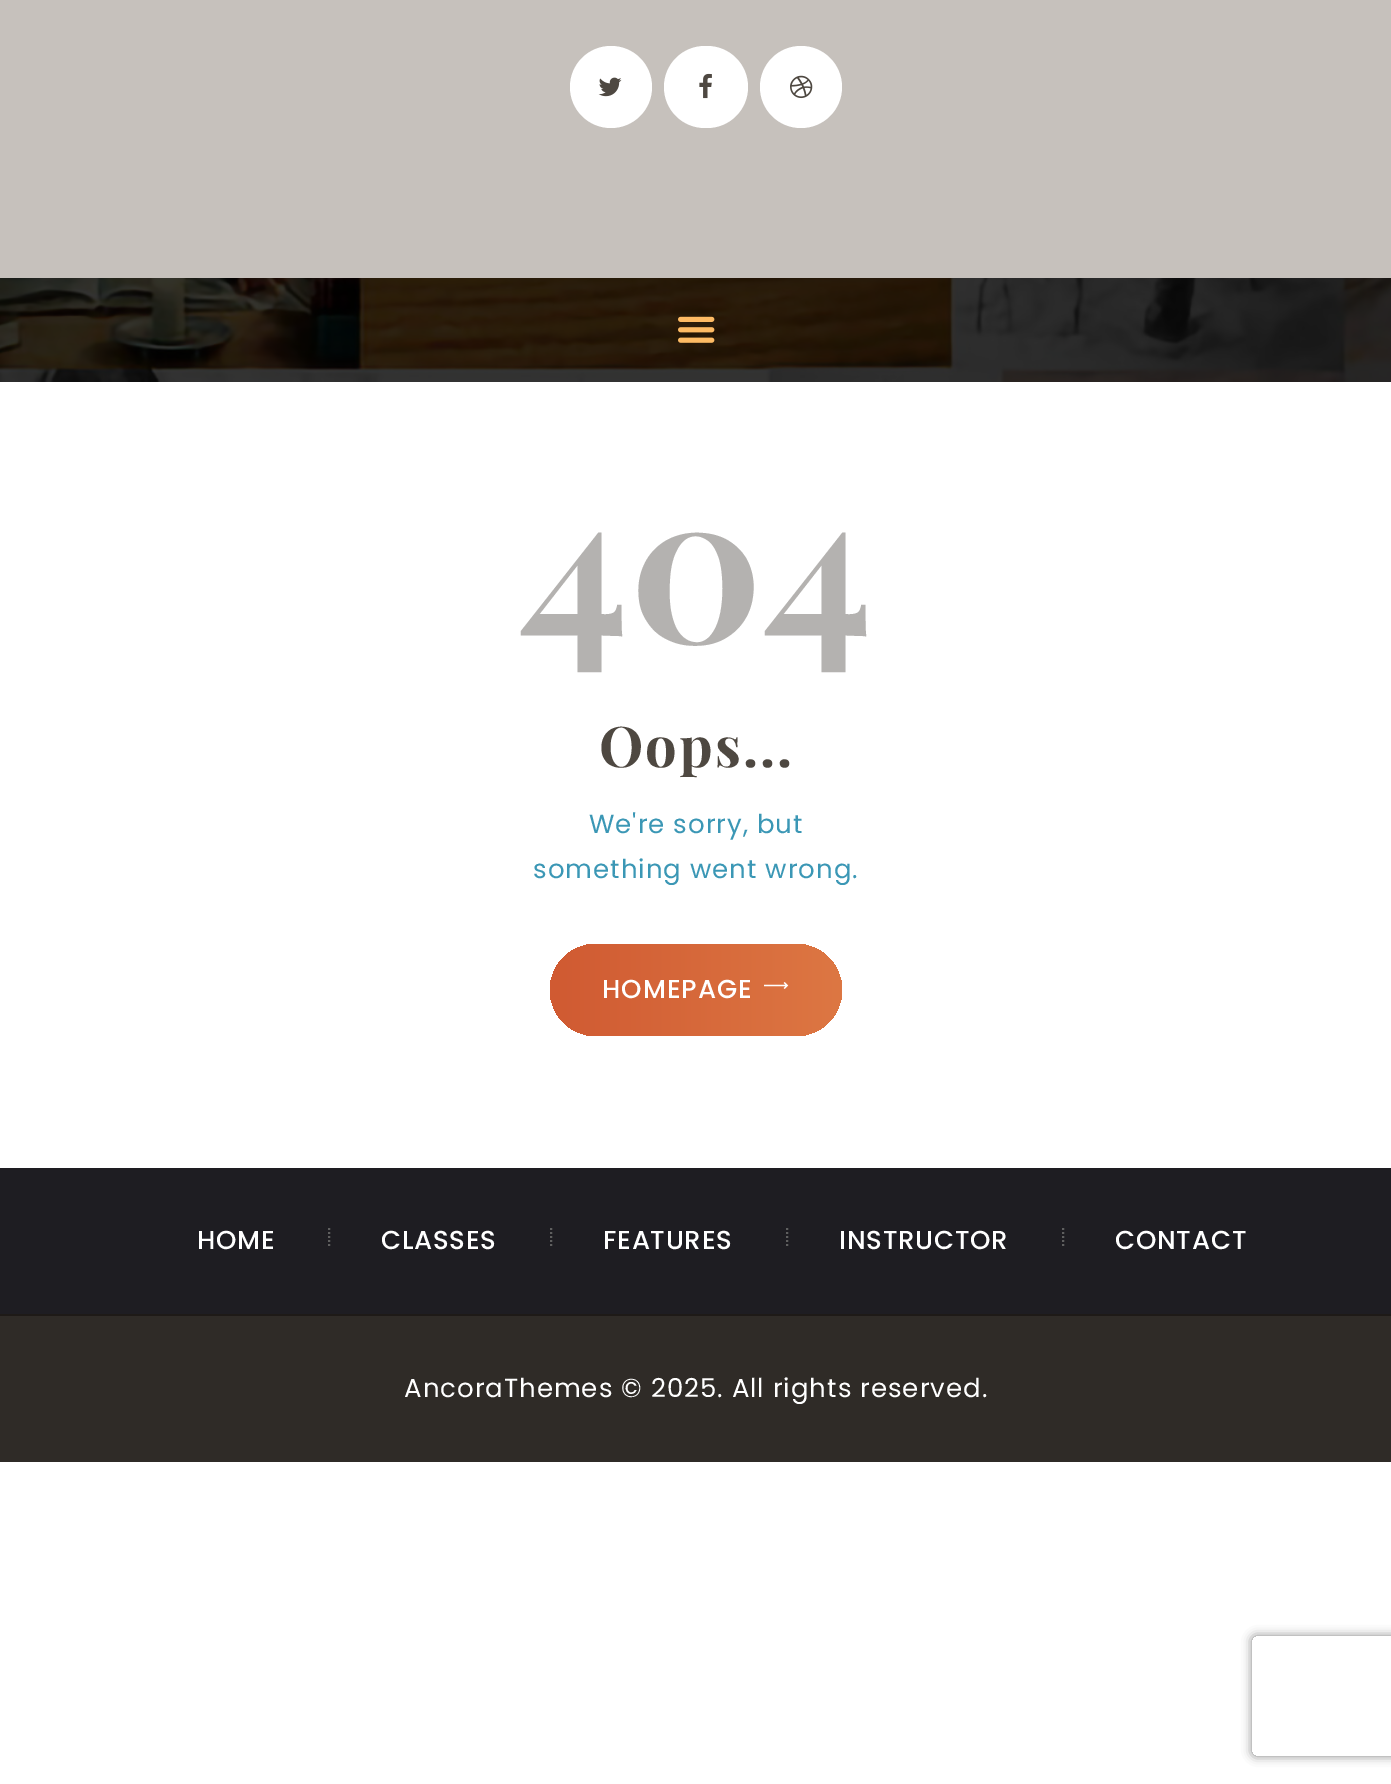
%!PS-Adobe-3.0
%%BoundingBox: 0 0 1391 1784
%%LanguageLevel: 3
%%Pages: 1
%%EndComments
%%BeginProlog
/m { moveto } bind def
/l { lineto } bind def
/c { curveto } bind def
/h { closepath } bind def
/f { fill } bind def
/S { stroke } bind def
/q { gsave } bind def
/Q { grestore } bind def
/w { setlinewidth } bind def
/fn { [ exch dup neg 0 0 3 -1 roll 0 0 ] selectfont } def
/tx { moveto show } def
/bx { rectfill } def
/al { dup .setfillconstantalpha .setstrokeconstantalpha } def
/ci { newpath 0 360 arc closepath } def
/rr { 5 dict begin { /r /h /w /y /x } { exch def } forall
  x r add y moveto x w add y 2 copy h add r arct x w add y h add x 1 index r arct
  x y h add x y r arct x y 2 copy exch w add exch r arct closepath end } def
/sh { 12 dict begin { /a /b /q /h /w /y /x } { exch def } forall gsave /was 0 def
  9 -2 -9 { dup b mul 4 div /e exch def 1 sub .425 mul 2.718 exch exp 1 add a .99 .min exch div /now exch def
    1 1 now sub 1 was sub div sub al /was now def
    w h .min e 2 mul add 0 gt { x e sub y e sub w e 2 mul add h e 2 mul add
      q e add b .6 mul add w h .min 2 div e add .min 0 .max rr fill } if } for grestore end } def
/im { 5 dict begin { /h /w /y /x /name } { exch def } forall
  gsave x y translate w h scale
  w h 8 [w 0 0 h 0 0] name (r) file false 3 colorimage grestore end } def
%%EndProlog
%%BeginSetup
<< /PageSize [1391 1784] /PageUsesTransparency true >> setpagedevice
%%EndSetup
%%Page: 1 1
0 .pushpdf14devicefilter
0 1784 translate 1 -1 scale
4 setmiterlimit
1 setgray
0 0 1391 1784 bx
(image0.raw) 0 278 1391 104 im
0.776 0.757 0.737 setrgbcolor
0 0 1391 278 bx
1 setgray
611 87 41 ci f
(image1.raw) 598 77 24 20 im
664 46 84 82 41 rr f
(image2.raw) 699 73 13 26 im
801 87 41 ci f
(image3.raw) 790 75 23 24 im
0.8 al
0 setgray
0 278 1391 104 bx
1 al
(image4.raw) 678 316 37 27 im
/PlayfairDisplay-Bold 208 fn
0.706 0.698 0.69 setrgbcolor
(404) 519 643 tx
/PlayfairDisplay-Bold 56 fn
0.306 0.282 0.255 setrgbcolor
599 767 m 2 0 (Oops...) ashow
/Poppins-Regular 26 fn
0.231 0.592 0.71 setrgbcolor
589 833 m 1 0 (We're sorry, but) ashow
533 878 m 1 0 (something went wrong.) ashow
q 550 944 292 92 46 rr clip newpath
<< /ShadingType 2 /ColorSpace /DeviceRGB /Coords [229 990 842 990] /Extend [true true] /Function << /FunctionType 3 /Domain [0 1] /Functions [<< /FunctionType 2 /Domain [0 1] /C0 [0.216 0.592 0.722] /C1 [0.451 0.635 0.627] /N 1 >> << /FunctionType 2 /Domain [0 1] /C0 [0.812 0.349 0.192] /C1 [0.867 0.467 0.263] /N 1 >>] /Bounds [0.5] /Encode [0 1 0 1] >> >> shfill Q
/Poppins-Medium 26 fn
1 setgray
602 998 m 1 0 (HOMEPAGE) ashow
(image5.raw) 764 982 25 7 im
0.118 0.114 0.133 setrgbcolor
0 1168 1391 146 bx
1 setgray
197 1249 m 0.75 0 (HOME) ashow
0.373 setgray
2 w
[2 2] 0 setdash
329 1228 m 329 1248 l S
1 setgray
381 1249 m 0.75 0 (CLASSES) ashow
0.373 setgray
551 1228 m 551 1248 l S
1 setgray
603 1249 m 0.75 0 (FEATURES) ashow
0.373 setgray
787 1228 m 787 1248 l S
1 setgray
839 1249 m 0.75 0 (INSTRUCTOR) ashow
0.373 setgray
1063 1228 m 1063 1248 l S
1 setgray
1115 1249 m 0.75 0 (CONTACT) ashow
0.184 0.169 0.153 setrgbcolor
0 1316 1391 146 bx
0.118 0.102 0.09 setrgbcolor
0 1314 1391 2 bx
/Poppins-Regular 26 fn
1 setgray
404 1397 m 1 0 (AncoraThemes © 2025. All rights reserved.) ashow
q
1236 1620 m 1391 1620 l 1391 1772 l 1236 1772 l h 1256 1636 m 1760 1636 l 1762 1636 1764 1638 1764 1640 c 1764 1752 l 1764 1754 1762 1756 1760 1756 c 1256 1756 l 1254 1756 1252 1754 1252 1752 c 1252 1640 l 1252 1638 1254 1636 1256 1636 c h eoclip newpath
0.502 setgray
1252 1636 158 120 4 5 1 sh
Q
.poppdf14devicefilter showpage
%%EOF
